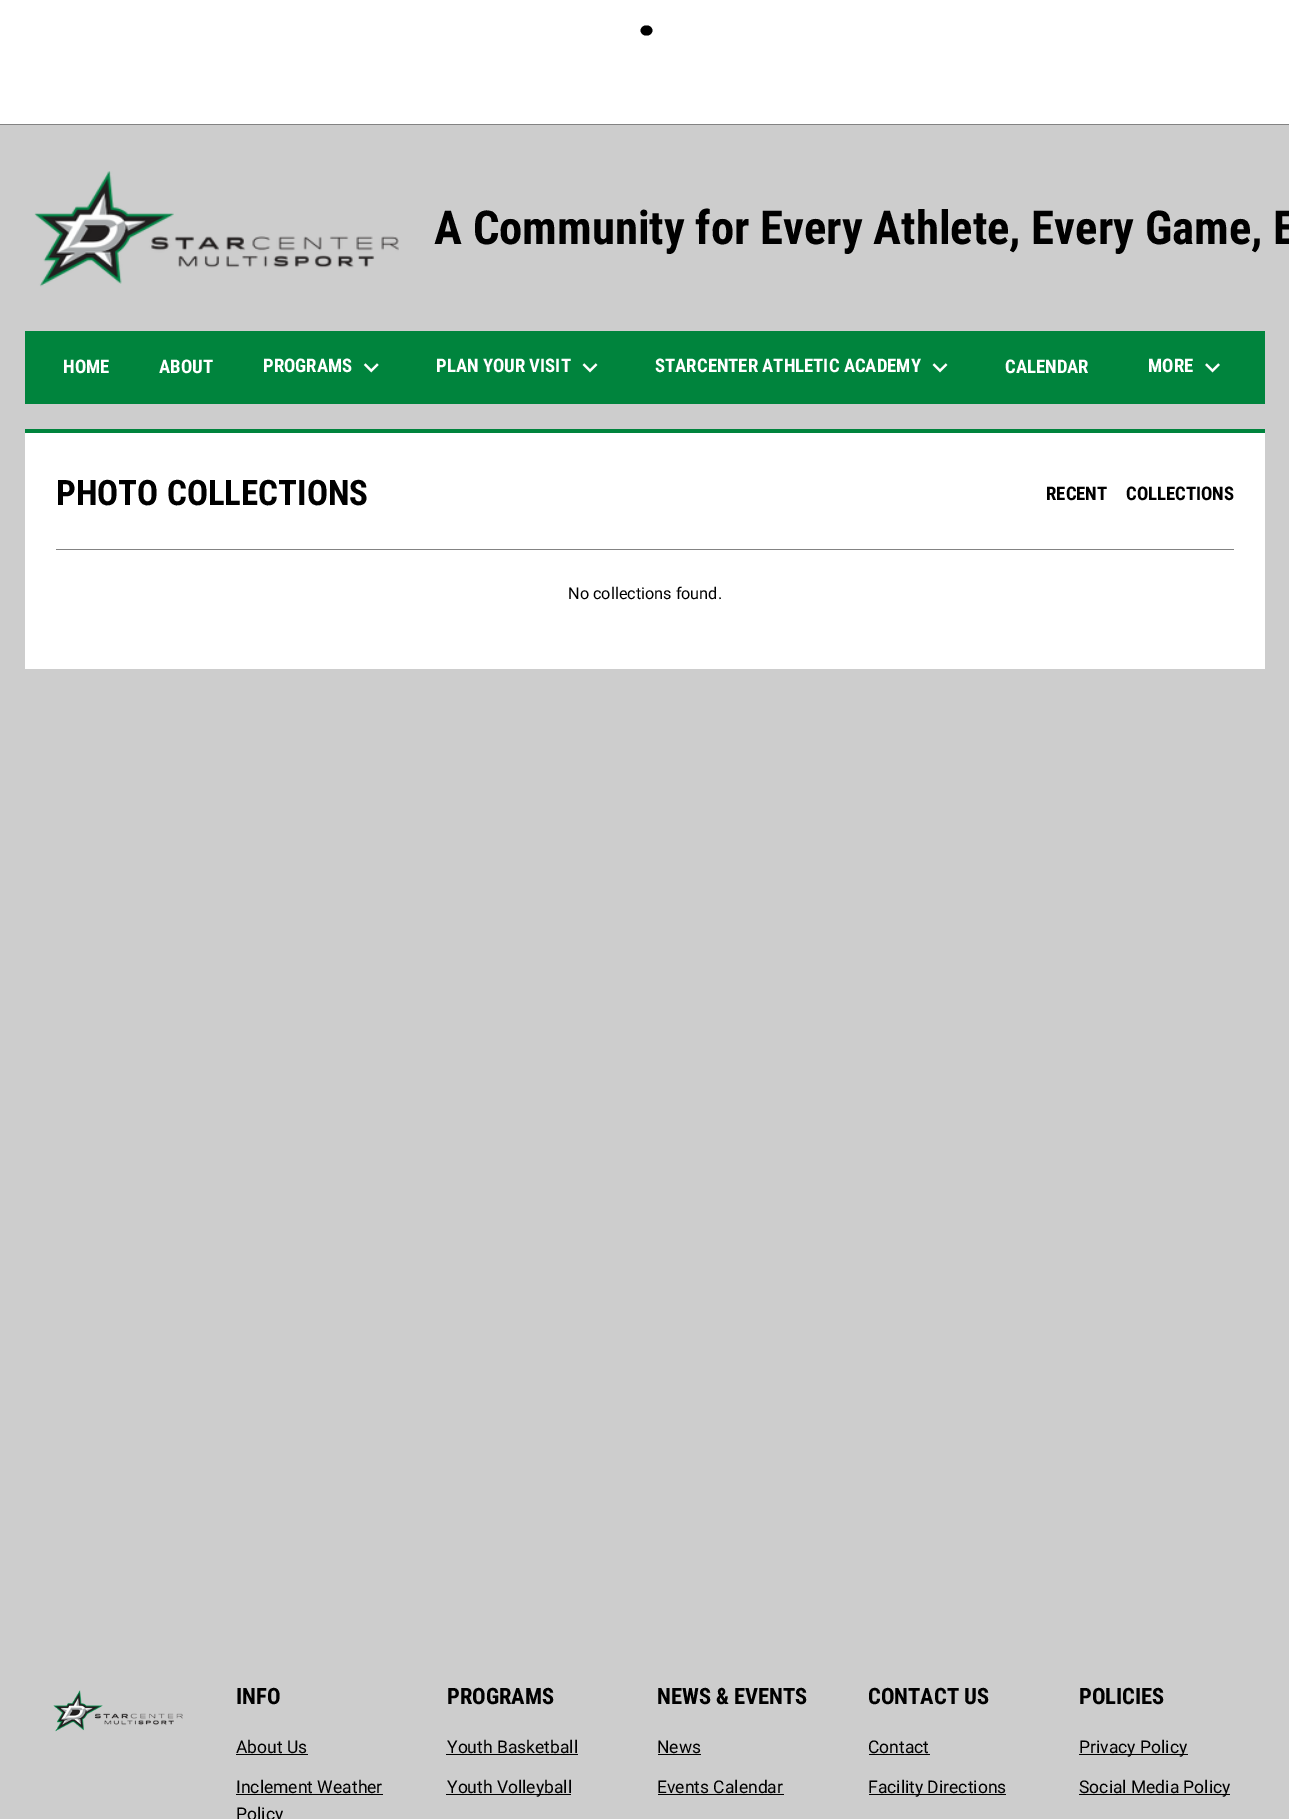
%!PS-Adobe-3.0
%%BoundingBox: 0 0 1289 1819
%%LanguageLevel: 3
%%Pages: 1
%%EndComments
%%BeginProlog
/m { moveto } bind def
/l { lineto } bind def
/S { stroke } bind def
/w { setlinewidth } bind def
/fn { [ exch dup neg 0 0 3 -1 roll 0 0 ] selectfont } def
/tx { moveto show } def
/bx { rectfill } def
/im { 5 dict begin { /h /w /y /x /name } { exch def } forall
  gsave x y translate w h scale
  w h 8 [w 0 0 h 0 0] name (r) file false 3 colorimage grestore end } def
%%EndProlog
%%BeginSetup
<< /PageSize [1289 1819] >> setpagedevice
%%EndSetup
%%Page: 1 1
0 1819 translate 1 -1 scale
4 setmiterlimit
0.804 setgray
0 0 1289 1819 bx
1 setgray
0 0 1289 124 bx
0.514 setgray
0 124 1289 1 bx
0 setgray
9.8 w
1 setlinecap
645.5 30.5 m 647.5 30.5 l S
(image0.raw) 34 171 365 116 im
/RobotoCondensed-Bold 46.7 fn
(A Community for Every Athlete, Every Game, E) 434 244 tx
0 0.518 0.239 setrgbcolor
25 331 1240 73 bx
/RobotoCondensed-Bold 18.75 fn
1 setgray
(HOME) 63 373 tx
(ABOUT) 159 373 tx
(PROGRAMS) 263 372 tx
(image1.raw) 363 363 16 10 im
(PLAN YOUR VISIT) 436 372 tx
(image2.raw) 582 363 16 10 im
(STARCENTER ATHLETIC ACADEMY) 655 372 tx
(image2.raw) 932 363 16 10 im
(CALENDAR) 1005 373 tx
(MORE) 1148 372 tx
(image3.raw) 1205 363 15 10 im
25 433 1240 236 bx
0 0.518 0.239 setrgbcolor
25 429 1240 4 bx
/RobotoCondensed-Bold 35 fn
0 setgray
(PHOTO COLLECTIONS) 56 505 tx
/RobotoCondensed-Bold 18.75 fn
(RECENT) 1046 500 tx
(COLLECTIONS) 1126 500 tx
0.514 setgray
56 549 1178 1 bx
/Roboto-Regular 16.25 fn
0 setgray
(No collections found.) 568 599 tx
(image4.raw) 53 1690 130 42 im
/RobotoCondensed-Bold 22.5 fn
(INFO) 236 1704 tx
/Roboto-Regular 17.5 fn
(About Us) 236 1753 tx
236 1754 72 1 bx
(Inclement Weather) 236 1793 tx
236 1794 147 1 bx
(Policy) 236 1820 tx
/RobotoCondensed-Bold 22.5 fn
(PROGRAMS) 447 1704 tx
/Roboto-Regular 17.5 fn
(Youth Basketball) 447 1753 tx
446 1754 132 1 bx
446 1794 125 1 bx
(Youth Volleyball) 447 1793 tx
/RobotoCondensed-Bold 22.5 fn
(NEWS & EVENTS) 657 1704 tx
/Roboto-Regular 17.5 fn
(News) 657 1753 tx
658 1754 43 1 bx
(Events Calendar) 657 1793 tx
658 1794 126 1 bx
/RobotoCondensed-Bold 22.5 fn
(CONTACT US) 868 1704 tx
/Roboto-Regular 17.5 fn
(Contact) 868 1753 tx
869 1754 61 1 bx
869 1794 137 1 bx
(Facility Directions) 868 1793 tx
/RobotoCondensed-Bold 22.5 fn
(POLICIES) 1079 1704 tx
1079 1754 109 1 bx
/Roboto-Regular 17.5 fn
(Privacy Policy) 1079 1753 tx
1079 1794 151 1 bx
(Social Media Policy) 1079 1793 tx
showpage
%%EOF
